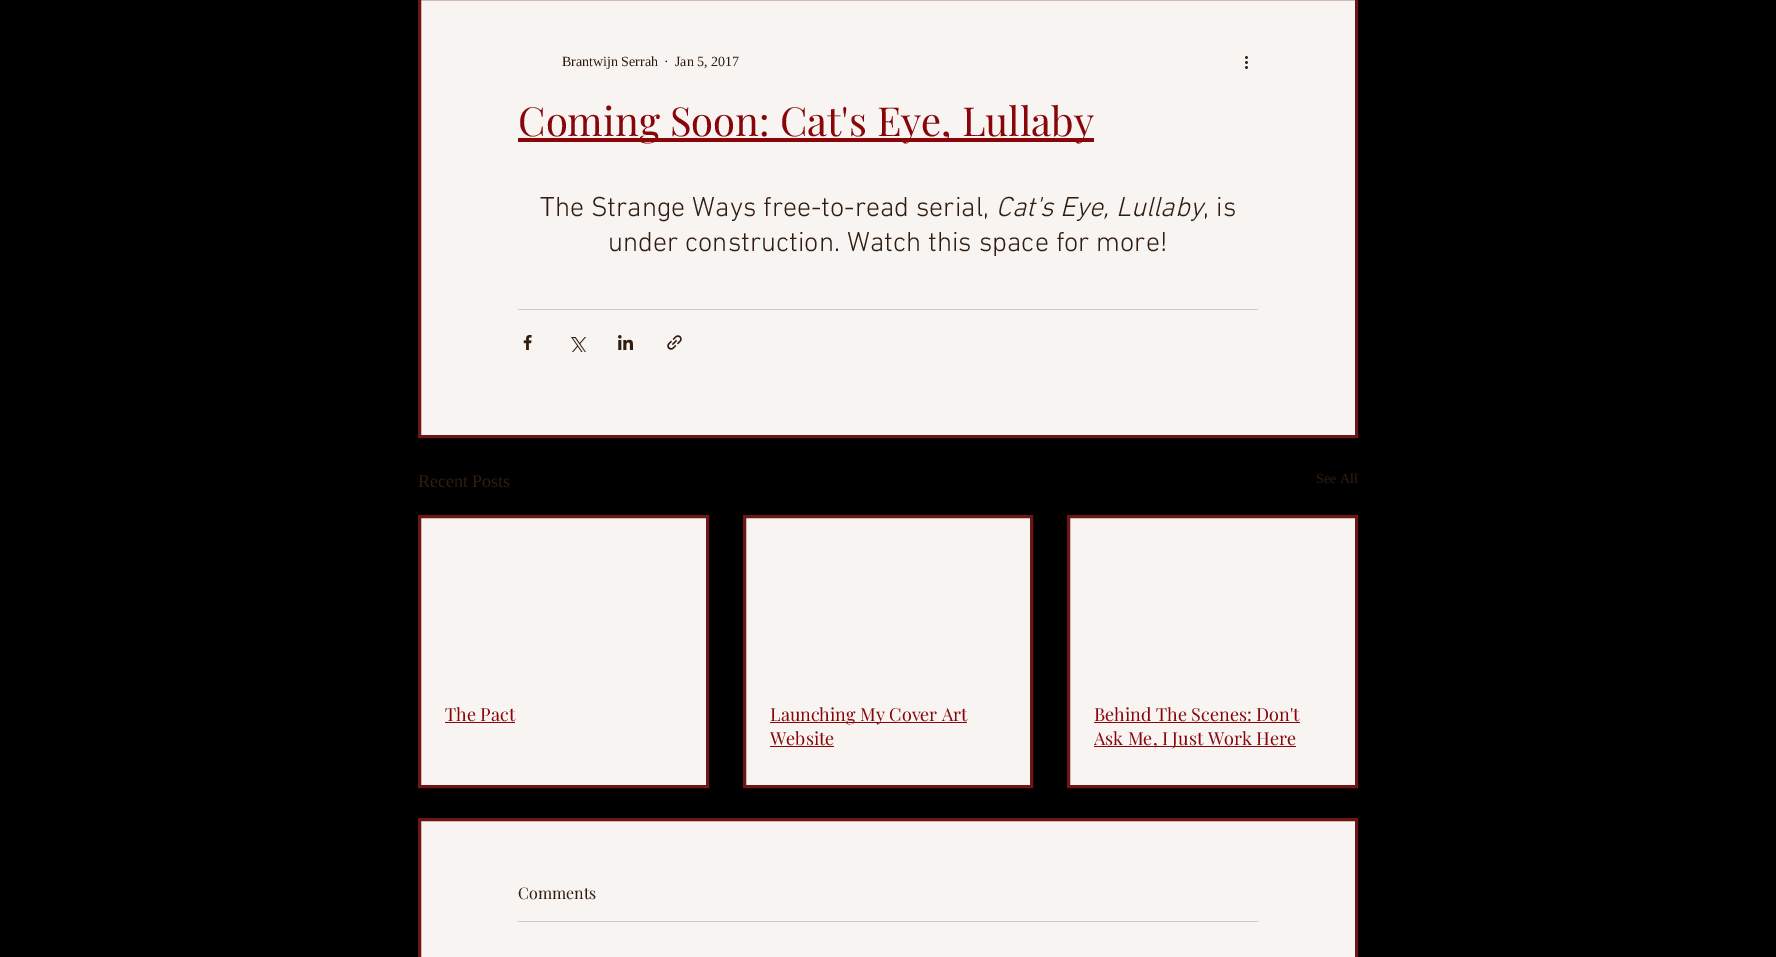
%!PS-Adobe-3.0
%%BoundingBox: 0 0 1776 957
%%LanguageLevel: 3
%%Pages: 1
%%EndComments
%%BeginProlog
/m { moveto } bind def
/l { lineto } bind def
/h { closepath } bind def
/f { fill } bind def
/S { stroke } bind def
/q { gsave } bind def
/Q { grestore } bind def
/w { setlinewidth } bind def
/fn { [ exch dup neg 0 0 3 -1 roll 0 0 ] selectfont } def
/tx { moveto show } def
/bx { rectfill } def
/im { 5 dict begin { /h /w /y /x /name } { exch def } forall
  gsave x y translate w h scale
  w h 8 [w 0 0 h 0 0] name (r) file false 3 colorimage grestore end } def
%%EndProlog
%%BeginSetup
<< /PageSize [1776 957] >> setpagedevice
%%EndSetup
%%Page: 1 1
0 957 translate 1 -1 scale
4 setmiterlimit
0 setgray
0 0 1776 957 bx
0.973 0.957 0.945 setrgbcolor
419.5 -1.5 m 1356.5 -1.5 l 1356.5 436.5 l 419.5 436.5 l h q f Q
0.427 0.086 0.086 setrgbcolor
3 w
S
/LiberationSerif-Regular 14 fn
0.188 0.114 0.063 setrgbcolor
(Brantwijn Serrah) 562 66 tx
(·) 664 66 tx
(Jan 5, 2017) 675 66 tx
(image0.raw) 1245 56 3 13 im
0.533 0.02 0.039 setrgbcolor
518 138 576 4 bx
/PlayfairDisplay-Regular 40 fn
(Coming Soon: Cat's Eye, Lullaby) 518 136 tx
/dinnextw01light-Light 28 fn
0.188 0.114 0.063 setrgbcolor
(The Strange Ways free-to-read serial,) 540 216 tx
/dinnextw01light-LightItalic 28 fn
(Cat's Eye, Lullaby) 996 216 tx
/dinnextw01light-Light 28 fn
(, is) 1203 216 tx
(under construction. Watch this space for more!) 608 251 tx
0.816 0.788 0.769 setrgbcolor
518 309 740 1 bx
(image1.raw) 523 335 9 15 im
(image2.raw) 571 337 15 15 im
(image3.raw) 618 335 15 15 im
(image4.raw) 667 335 15 15 im
/LiberationSerif-Regular 18 fn
0.188 0.114 0.063 setrgbcolor
(Recent Posts) 418 487 tx
/LiberationSerif-Regular 14 fn
(See All) 1316 483 tx
0.973 0.957 0.945 setrgbcolor
419.5 516.5 m 707.5 516.5 l 707.5 786.5 l 419.5 786.5 l h q f Q
0.427 0.086 0.086 setrgbcolor
S
/PlayfairDisplay-Regular 18 fn
0.533 0.02 0.039 setrgbcolor
(The Pact) 445 721 tx
445 722 70 1 bx
0.973 0.957 0.945 setrgbcolor
744.5 516.5 m 1031.5 516.5 l 1031.5 786.5 l 744.5 786.5 l h q f Q
0.427 0.086 0.086 setrgbcolor
S
0.533 0.02 0.039 setrgbcolor
770 722 197 1 bx
(Launching My Cover Art) 770 721 tx
(Website) 770 745 tx
770 746 64 1 bx
0.973 0.957 0.945 setrgbcolor
1068.5 516.5 m 1356.5 516.5 l 1356.5 786.5 l 1068.5 786.5 l h q f Q
0.427 0.086 0.086 setrgbcolor
S
0.533 0.02 0.039 setrgbcolor
(Behind The Scenes: Don't) 1094 721 tx
1094 722 206 1 bx
1094 746 202 1 bx
(Ask Me, I Just Work Here) 1094 745 tx
0.973 0.957 0.945 setrgbcolor
419.5 819.5 m 1356.5 819.5 l 1356.5 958.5 l 419.5 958.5 l h q f Q
0.427 0.086 0.086 setrgbcolor
S
/PlayfairDisplay-Regular 16 fn
0.188 0.114 0.063 setrgbcolor
(Comments) 518 899 tx
0.816 0.788 0.769 setrgbcolor
518 921 740 1 bx
showpage
%%EOF
